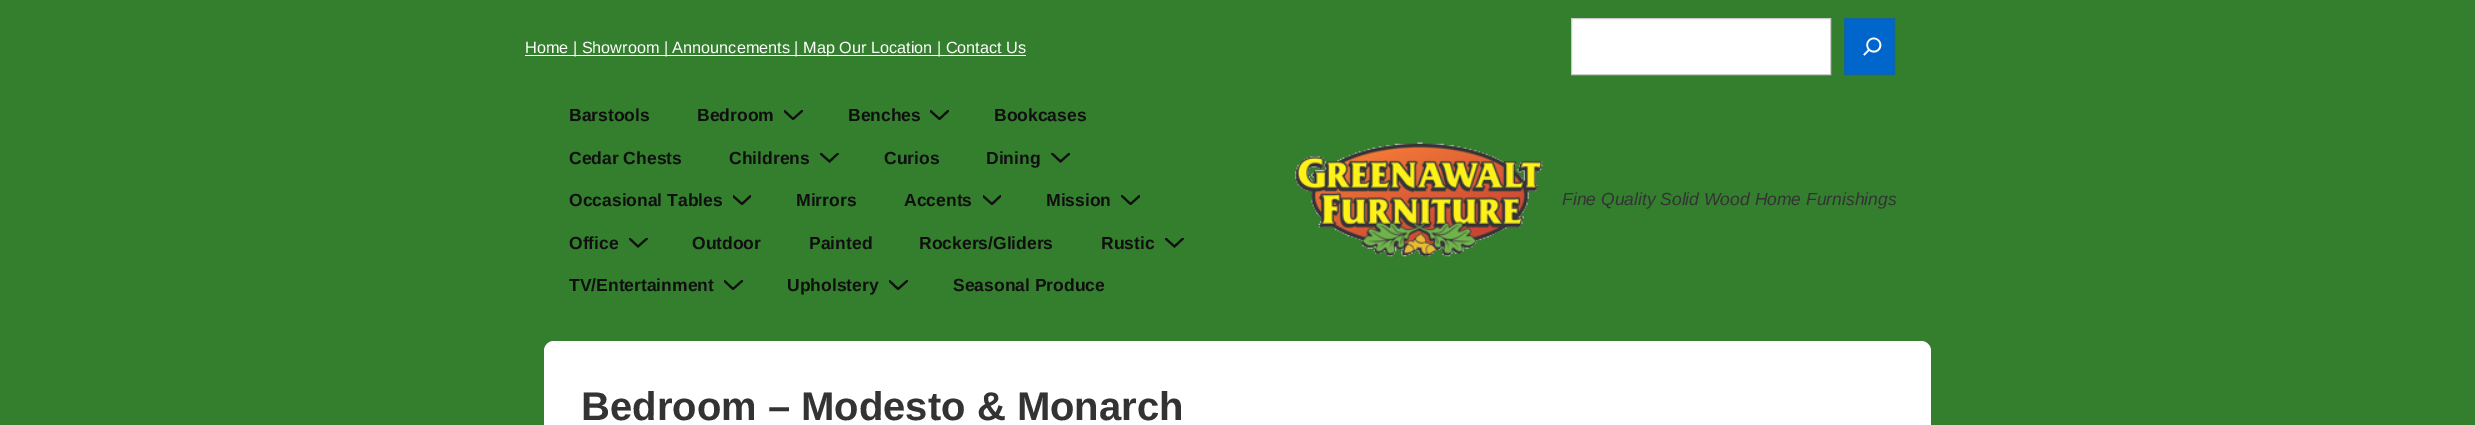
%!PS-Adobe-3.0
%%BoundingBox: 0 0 2475 425
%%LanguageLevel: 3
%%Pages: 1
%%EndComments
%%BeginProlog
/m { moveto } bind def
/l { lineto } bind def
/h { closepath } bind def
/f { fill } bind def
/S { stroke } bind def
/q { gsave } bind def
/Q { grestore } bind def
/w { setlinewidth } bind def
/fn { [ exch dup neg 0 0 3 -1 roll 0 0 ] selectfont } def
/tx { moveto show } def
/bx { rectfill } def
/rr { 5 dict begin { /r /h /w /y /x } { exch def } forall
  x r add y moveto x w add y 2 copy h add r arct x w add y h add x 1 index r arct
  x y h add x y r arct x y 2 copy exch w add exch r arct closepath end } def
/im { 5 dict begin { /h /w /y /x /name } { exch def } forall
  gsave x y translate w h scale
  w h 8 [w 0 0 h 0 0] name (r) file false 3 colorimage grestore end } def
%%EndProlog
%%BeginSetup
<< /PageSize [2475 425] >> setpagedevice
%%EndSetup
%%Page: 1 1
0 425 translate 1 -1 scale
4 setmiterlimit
0.204 0.498 0.18 setrgbcolor
0 0 2475 425 bx
1 setgray
525 55 501 1 bx
/LiberationSans-Regular 16.25 fn
(Home | Showroom | Announcements | Map Our Location | Contact Us) 525 53 tx
1571.5 18.5 m 1830.5 18.5 l 1830.5 74.5 l 1571.5 74.5 l h q f Q
0.8 setgray
S
0 0.4 0.8 setrgbcolor
1844.5 18.5 m 1894.5 18.5 l 1894.5 74.5 l 1844.5 74.5 l h q f Q
0.063 0.396 0.612 setrgbcolor
S
(image0.raw) 1863 37 19 19 im
/LiberationSans-Bold 17.5 fn
0.059 setgray
(Barstools) 569 121 tx
(Bedroom) 697 121 tx
q
784 110 19 10 rectclip
2 w
1 setlinecap
784.5 111 m 793 119 l 802 111 l S
Q
(Benches) 848 121 tx
q
930 110 19 10 rectclip
2 w
1 setlinecap
930.5 111 m 939.5 119 l 948 111 l S
Q
(Bookcases) 994 121 tx
(Cedar Chests) 569 164 tx
(Childrens) 729 164 tx
q
820 153 19 10 rectclip
2 w
1 setlinecap
820.5 153.5 m 829.5 161.5 l 838 153.5 l S
Q
(Curios) 884 164 tx
(Dining) 986 164 tx
q
1051 153 19 10 rectclip
2 w
1 setlinecap
1052 153.5 m 1060.5 161.5 l 1069.5 153.5 l S
Q
(Occasional Tables) 569 206 tx
q
733 195 18 10 rectclip
2 w
1 setlinecap
733 196 m 742 204 l 750.5 196 l S
Q
(Mirrors) 796 206 tx
(Accents) 904 206 tx
q
983 195 18 10 rectclip
2 w
1 setlinecap
983 196 m 992 204 l 1000.5 196 l S
Q
(Mission) 1046 206 tx
q
1121 195 19 10 rectclip
2 w
1 setlinecap
1122 196 m 1130.5 204 l 1139.5 196 l S
Q
(Office) 569 249 tx
q
629 238 19 10 rectclip
2 w
1 setlinecap
629.5 238.5 m 638 246.5 l 647 238.5 l S
Q
(Outdoor) 692 249 tx
(Painted) 809 249 tx
(Rockers/Gliders) 919 249 tx
(Rustic) 1101 249 tx
q
1165 238 19 10 rectclip
2 w
1 setlinecap
1165.5 238.5 m 1174.5 246.5 l 1183 238.5 l S
Q
(TV/Entertainment) 569 291 tx
q
724 280 19 10 rectclip
2 w
1 setlinecap
724.5 281 m 733 289 l 742 281 l S
Q
(Upholstery) 787 291 tx
q
889 280 19 10 rectclip
2 w
1 setlinecap
889.5 281 m 898 289 l 907 281 l S
Q
(Seasonal Produce) 953 291 tx
(image1.raw) 1294 142 249 115 im
/LiberationSans-Italic 17.5 fn
0.2 setgray
(Fine Quality Solid Wood Home Furnishings) 1562 205 tx
1 setgray
544 341 1387 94 10 rr f
/LiberationSans-Bold 40 fn
0.2 setgray
(Bedroom – Modesto & Monarch) 581 420 tx
showpage
%%EOF
